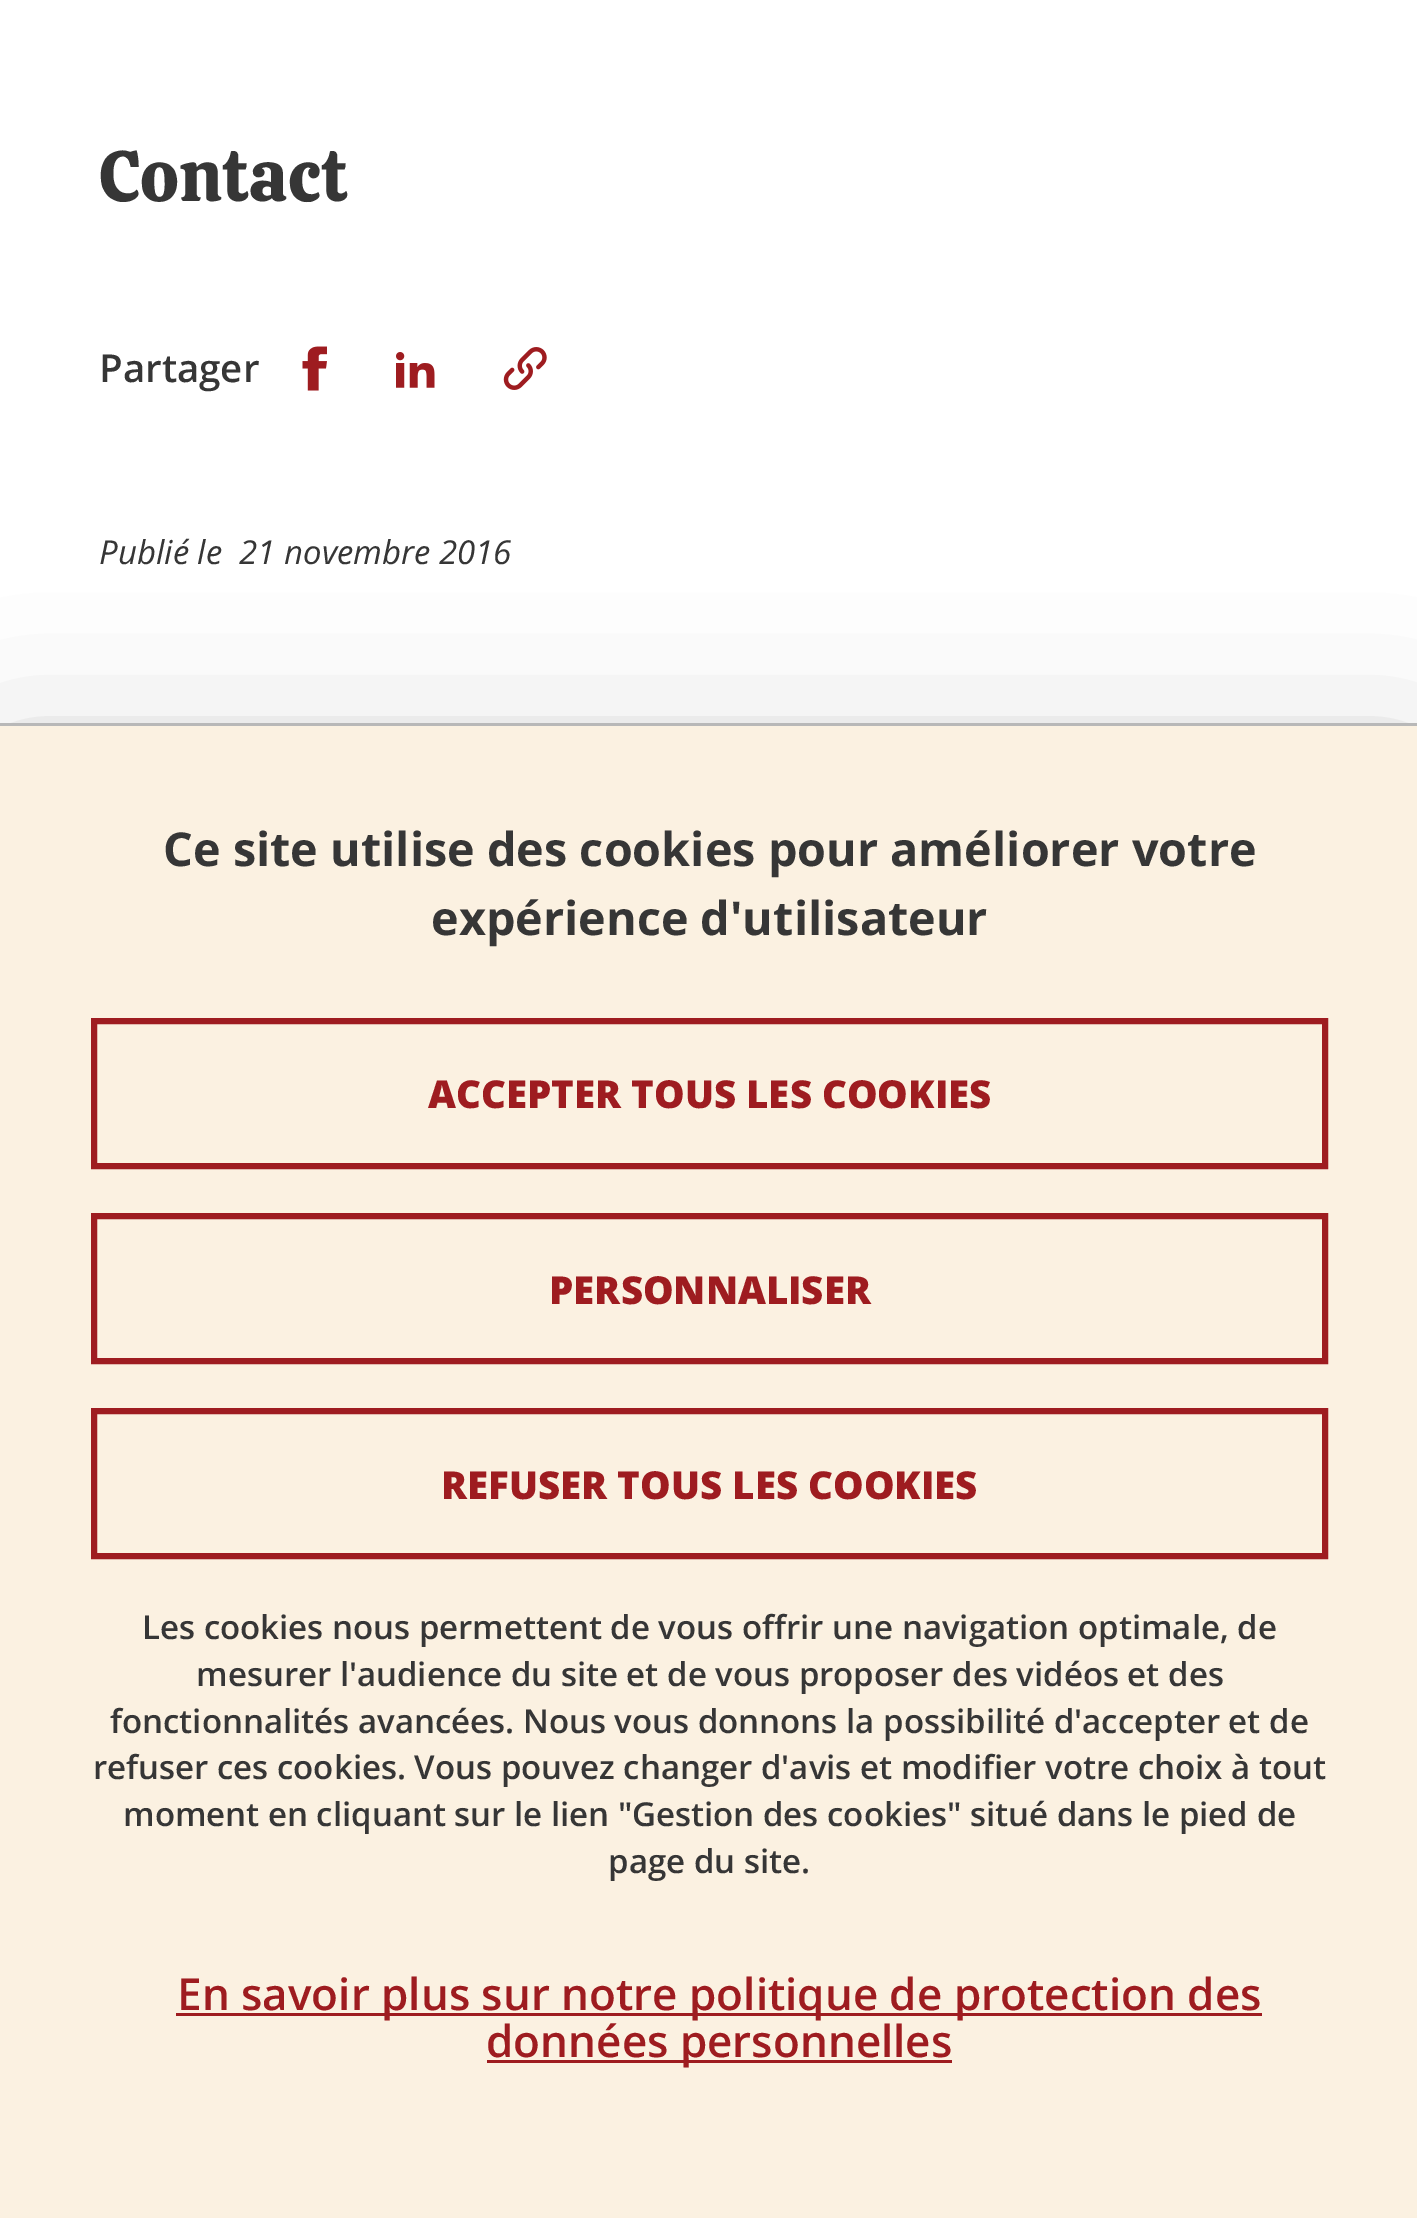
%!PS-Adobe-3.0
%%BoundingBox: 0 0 1417 2218
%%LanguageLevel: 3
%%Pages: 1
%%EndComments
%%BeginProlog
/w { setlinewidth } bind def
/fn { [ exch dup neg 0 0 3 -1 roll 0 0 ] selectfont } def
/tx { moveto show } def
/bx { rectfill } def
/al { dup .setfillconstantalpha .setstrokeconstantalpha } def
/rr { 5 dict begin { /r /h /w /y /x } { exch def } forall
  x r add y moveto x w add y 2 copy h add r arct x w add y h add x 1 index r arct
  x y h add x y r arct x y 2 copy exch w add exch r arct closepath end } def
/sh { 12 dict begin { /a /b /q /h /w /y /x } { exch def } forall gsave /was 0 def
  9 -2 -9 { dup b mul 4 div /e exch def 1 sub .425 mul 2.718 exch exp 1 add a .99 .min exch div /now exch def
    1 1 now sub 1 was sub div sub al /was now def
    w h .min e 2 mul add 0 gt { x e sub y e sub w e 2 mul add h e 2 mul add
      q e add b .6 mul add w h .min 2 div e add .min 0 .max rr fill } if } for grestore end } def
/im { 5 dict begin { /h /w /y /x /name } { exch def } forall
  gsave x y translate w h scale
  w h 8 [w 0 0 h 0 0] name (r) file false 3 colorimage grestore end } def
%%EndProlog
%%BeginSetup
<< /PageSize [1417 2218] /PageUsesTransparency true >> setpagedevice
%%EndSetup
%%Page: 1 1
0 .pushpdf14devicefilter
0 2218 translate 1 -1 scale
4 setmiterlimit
1 setgray
0 0 1417 2218 bx
/Calistoga-Regular 71.5 fn
0.212 setgray
(Contact) 99 201 tx
/OpenSans-SemiBold 38.5 fn
(Partager) 99 382 tx
(image0.raw) 302 346 25 45 im
(image1.raw) 396 352 39 36 im
(image2.raw) 503 347 44 43 im
/OpenSans-Italic 33 fn
(Publié le  21 novembre 2016) 99 564 tx
0 setgray
0 778 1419 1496 0 82.5 0.25 sh
0.984 0.945 0.882 setrgbcolor
0 726 1417 1492 bx
0.722 setgray
0 723 1417 3 bx
/OpenSans-Bold 46.75 fn
0.212 setgray
(Ce site utilise des cookies pour améliorer votre) 163 866 tx
(expérience d'utilisateur) 431 935 tx
0.62 0.11 0.125 setrgbcolor
6 w
94 1021 1231 145 rectstroke
/OpenSans-ExtraBold 38.5 fn
(ACCEPTER TOUS LES COOKIES) 428 1108 tx
94 1216 1231 145 rectstroke
(PERSONNALISER) 549 1304 tx
94 1411 1231 145 rectstroke
(REFUSER TOUS LES COOKIES) 441 1499 tx
/OpenSans-SemiBold 33 fn
0.212 setgray
(Les cookies nous permettent de vous offrir une navigation optimale, de) 142 1639 tx
(mesurer l'audience du site et de vous proposer des vidéos et des) 196 1686 tx
(fonctionnalités avancées. Nous vous donnons la possibilité d'accepter et de) 110 1733 tx
(refuser ces cookies. Vous pouvez changer d'avis et modifier votre choix à tout) 93 1779 tx
(moment en cliquant sur le lien "Gestion des cookies" situé dans le pied de) 123 1826 tx
(page du site.) 608 1873 tx
0.62 0.11 0.125 setrgbcolor
176 2013 1086 3 bx
/OpenSans-SemiBold 44 fn
(En savoir plus sur notre politique de protection des) 177 2010 tx
487 2060 465 3 bx
(données personnelles) 486 2057 tx
.poppdf14devicefilter showpage
%%EOF
